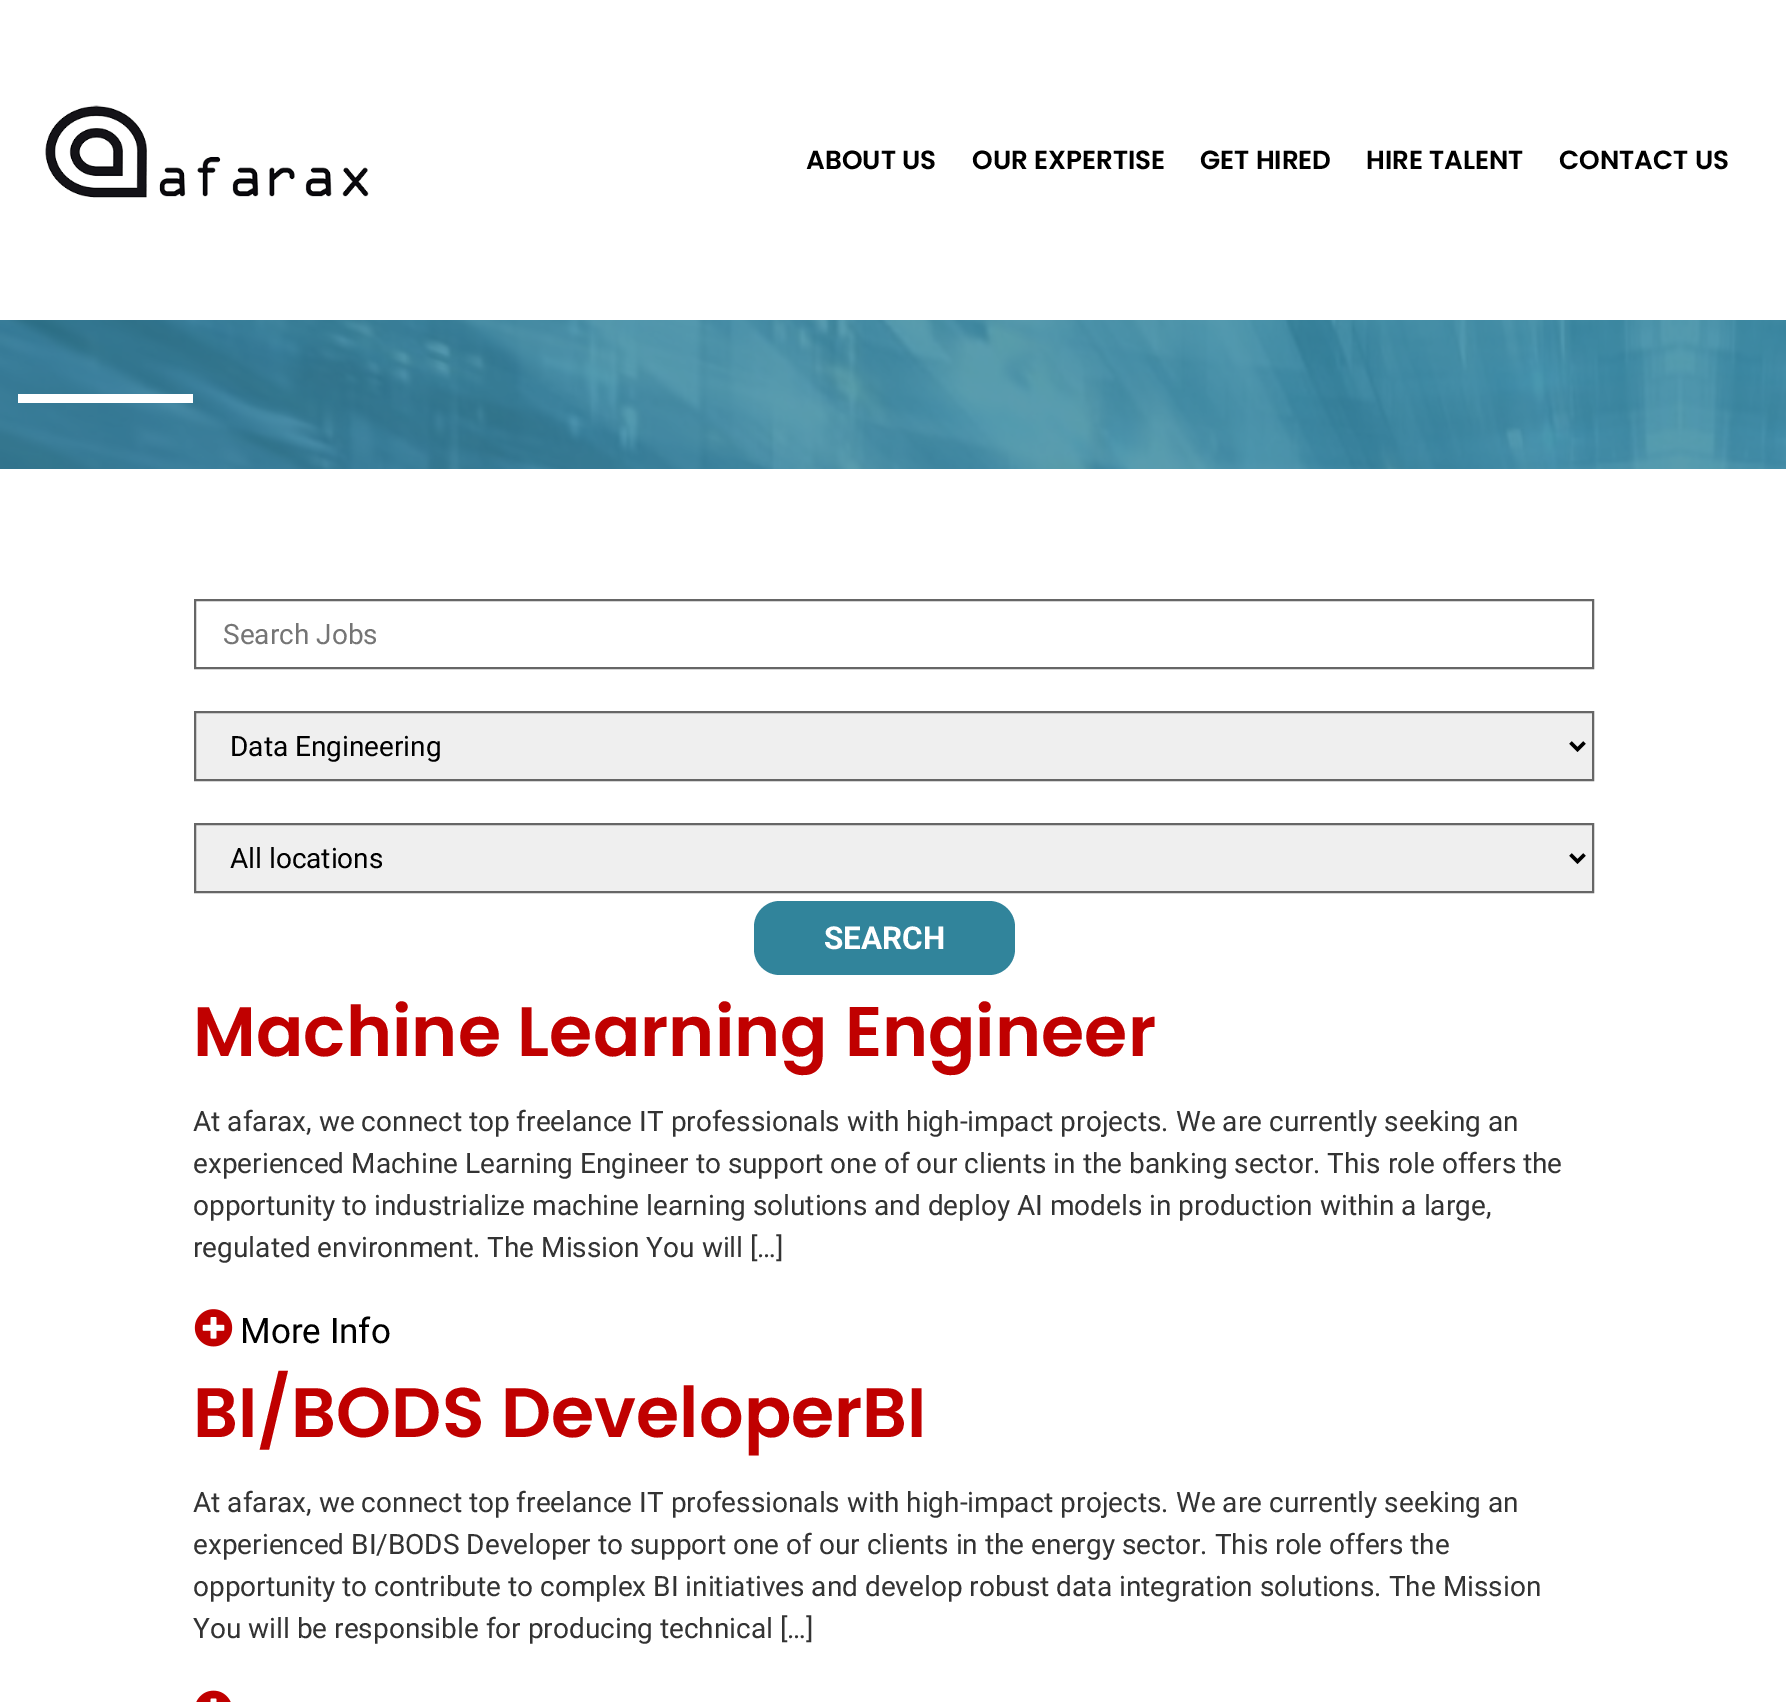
%!PS-Adobe-3.0
%%BoundingBox: 0 0 1786 1702
%%LanguageLevel: 3
%%Pages: 1
%%EndComments
%%BeginProlog
/m { moveto } bind def
/l { lineto } bind def
/h { closepath } bind def
/f { fill } bind def
/S { stroke } bind def
/q { gsave } bind def
/Q { grestore } bind def
/w { setlinewidth } bind def
/fn { [ exch dup neg 0 0 3 -1 roll 0 0 ] selectfont } def
/tx { moveto show } def
/bx { rectfill } def
/rr { 5 dict begin { /r /h /w /y /x } { exch def } forall
  x r add y moveto x w add y 2 copy h add r arct x w add y h add x 1 index r arct
  x y h add x y r arct x y 2 copy exch w add exch r arct closepath end } def
/im { 5 dict begin { /h /w /y /x /name } { exch def } forall
  gsave x y translate w h scale
  w h 8 [w 0 0 h 0 0] name (r) file false 3 colorimage grestore end } def
%%EndProlog
%%BeginSetup
<< /PageSize [1786 1702] >> setpagedevice
%%EndSetup
%%Page: 1 1
0 1702 translate 1 -1 scale
4 setmiterlimit
1 setgray
0 0 1786 1702 bx
(image0.raw) 45 105 324 93 im
/Poppins-SemiBold 26.25 fn
0 setgray
(ABOUT US) 806 169 tx
(OUR EXPERTISE) 972 169 tx
(GET HIRED) 1200 169 tx
(HIRE TALENT) 1366 169 tx
(CONTACT US) 1559 169 tx
(image1.raw) 0 320 1786 149 im
1 setgray
18 394 175 9 bx
0.4 setgray
2 w
195 600 1398 68 rectstroke
/Roboto-Regular 28 fn
0.459 setgray
(Search Jobs) 223 644 tx
0.937 setgray
195 712 m 1593 712 l 1593 780 l 195 780 l h q f Q
0.4 setgray
S
0 setgray
3.5 w
1570.5 742.5 m 1577.5 749.5 l 1584.5 742.5 l S
(Data Engineering) 230 756 tx
0.937 setgray
195 824 m 1593 824 l 1593 892 l 195 892 l h q f Q
0.4 setgray
2 w
S
0 setgray
3.5 w
1570.5 854.5 m 1577.5 861.5 l 1584.5 854.5 l S
(All locations) 230 868 tx
0.192 0.518 0.608 setrgbcolor
754 901 261 74 26 rr f
/Roboto-Bold 31.5 fn
1 setgray
(SEARCH) 824 949 tx
/Poppins-SemiBold 70 fn
0.753 0 0 setrgbcolor
(Machine Learning Engineer) 193 1056 tx
/Roboto-Regular 28 fn
0.2 setgray
(At afarax, we connect top freelance IT professionals with high-impact projects. We are currently seeking an) 193 1131 tx
(experienced Machine Learning Engineer to support one of our clients in the banking sector. This role offers the) 193 1173 tx
(opportunity to industrialize machine learning solutions and deploy AI models in production within a large,) 193 1215 tx
(regulated environment. The Mission You will […]) 193 1257 tx
(image2.raw) 194 1309 39 38 im
/Roboto-Regular 35 fn
0 setgray
(More Info) 240 1343 tx
/Poppins-SemiBold 70 fn
0.753 0 0 setrgbcolor
(BI/BODS DeveloperBI) 193 1437 tx
/Roboto-Regular 28 fn
0.2 setgray
(At afarax, we connect top freelance IT professionals with high-impact projects. We are currently seeking an) 193 1512 tx
(experienced BI/BODS Developer to support one of our clients in the energy sector. This role offers the) 193 1554 tx
(opportunity to contribute to complex BI initiatives and develop robust data integration solutions. The Mission) 193 1596 tx
(You will be responsible for producing technical […]) 193 1638 tx
(image3.raw) 196 1690 35 12 im
showpage
%%EOF
